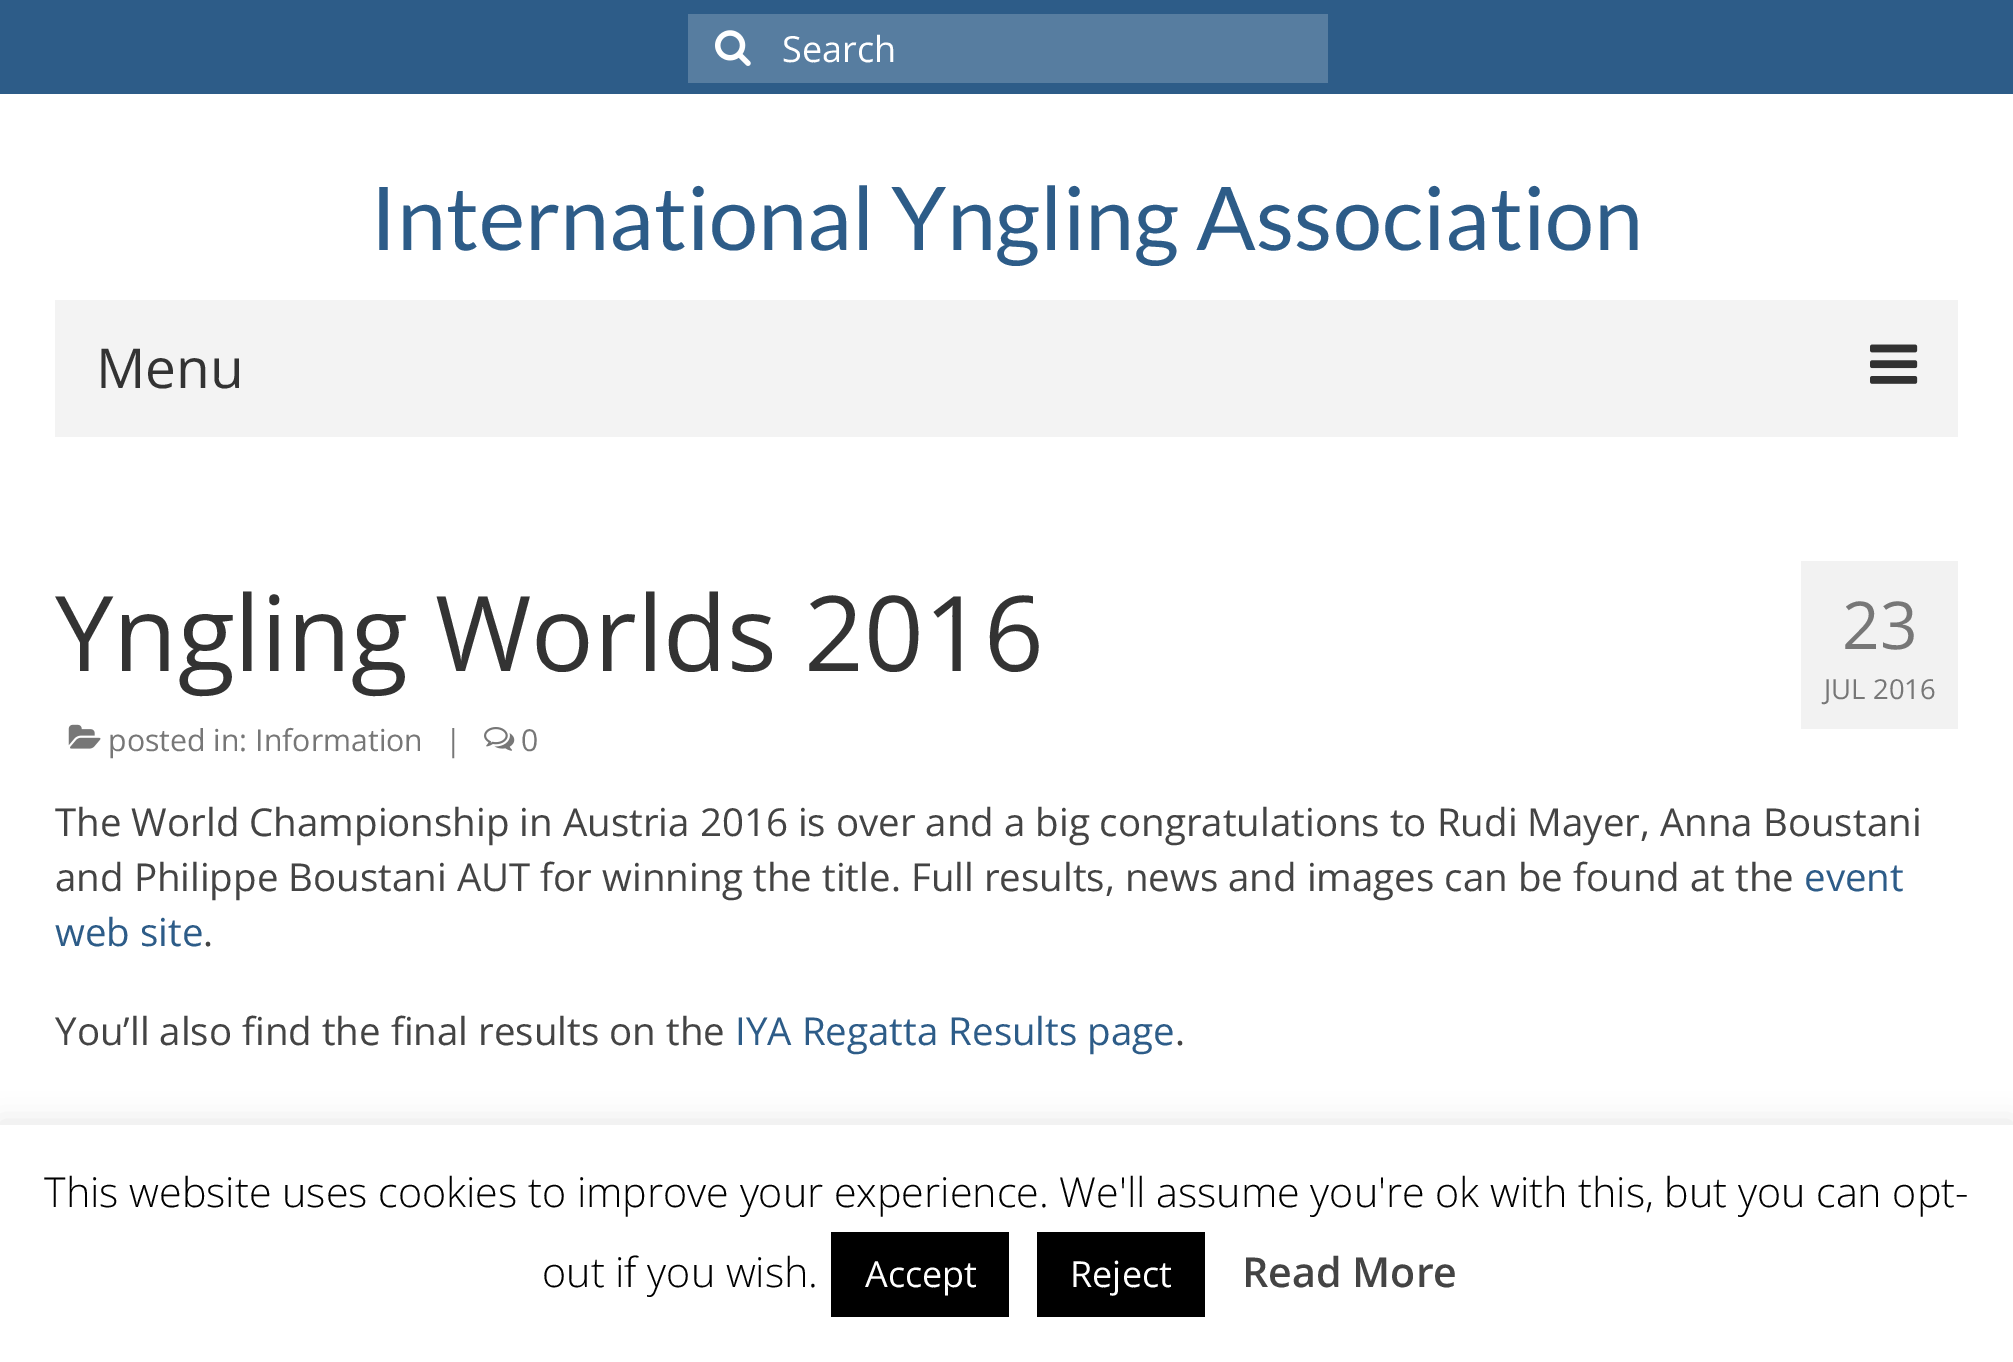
%!PS-Adobe-3.0
%%BoundingBox: 0 0 2013 1362
%%LanguageLevel: 3
%%Pages: 1
%%EndComments
%%BeginProlog
/fn { [ exch dup neg 0 0 3 -1 roll 0 0 ] selectfont } def
/tx { moveto show } def
/bx { rectfill } def
/al { dup .setfillconstantalpha .setstrokeconstantalpha } def
/rr { 5 dict begin { /r /h /w /y /x } { exch def } forall
  x r add y moveto x w add y 2 copy h add r arct x w add y h add x 1 index r arct
  x y h add x y r arct x y 2 copy exch w add exch r arct closepath end } def
/sh { 12 dict begin { /a /b /q /h /w /y /x } { exch def } forall gsave /was 0 def
  9 -2 -9 { dup b mul 4 div /e exch def 1 sub .425 mul 2.718 exch exp 1 add a .99 .min exch div /now exch def
    1 1 now sub 1 was sub div sub al /was now def
    w h .min e 2 mul add 0 gt { x e sub y e sub w e 2 mul add h e 2 mul add
      q e add b .6 mul add w h .min 2 div e add .min 0 .max rr fill } if } for grestore end } def
/im { 5 dict begin { /h /w /y /x /name } { exch def } forall
  gsave x y translate w h scale
  w h 8 [w 0 0 h 0 0] name (r) file false 3 colorimage grestore end } def
%%EndProlog
%%BeginSetup
<< /PageSize [2013 1362] /PageUsesTransparency true >> setpagedevice
%%EndSetup
%%Page: 1 1
0 .pushpdf14devicefilter
0 1362 translate 1 -1 scale
4 setmiterlimit
1 setgray
0 0 2013 1362 bx
0.176 0.361 0.533 setrgbcolor
0 0 2013 94 bx
0.341 0.49 0.627 setrgbcolor
688 14 640 69 bx
(image0.raw) 715 30 36 36 im
/OpenSans-Regular 36 fn
1 setgray
(Search) 782 62 tx
/Lato-Regular 88 fn
0.176 0.361 0.533 setrgbcolor
(International Yngling Association) 370 250 tx
0.953 setgray
55 300 1903 137 bx
/OpenSans-Regular 55 fn
0.2 setgray
(Menu) 96 388 tx
(image1.raw) 1870 344 48 40 im
/OpenSans-Regular 104.5 fn
(Yngling Worlds 2016) 55 671 tx
(image2.raw) 68 724 33 25 im
/OpenSans-Regular 30.25 fn
0.467 setgray
(posted in: Information) 108 751 tx
(|) 445 751 tx
(image3.raw) 484 727 31 24 im
(0) 521 751 tx
0.949 setgray
1801 561 157 168 bx
/OpenSans-Regular 66 fn
0.467 setgray
(23) 1842 649 tx
/OpenSans-Regular 27.5 fn
(JUL 2016) 1824 699 tx
/OpenSans-Regular 38.5 fn
0.267 setgray
(The World Championship in Austria 2016 is over and a big congratulations to Rudi Mayer, Anna Boustani) 55 836 tx
(and Philippe Boustani AUT for winning the title. Full results, news and images can be found at the) 55 891 tx
0.176 0.361 0.533 setrgbcolor
(event) 1804 891 tx
(web site) 55 946 tx
0.267 setgray
(.) 203 946 tx
(You’ll also find the final results on the) 55 1045 tx
0.176 0.361 0.533 setrgbcolor
(IYA Regatta Results page) 735 1045 tx
0.267 setgray
(.) 1175 1045 tx
0.675 0.671 0.671 setrgbcolor
0 1122 2013 239 0 14 0.3 sh
1 setgray
0 1125 2013 237 bx
/OpenSans-Light 41.25 fn
0 setgray
(This website uses cookies to improve your experience. We'll assume you're ok with this, but you can opt-) 44 1207 tx
(out if you wish.) 542 1287 tx
831 1232 178 85 bx
/OpenSans-Regular 36 fn
1 setgray
(Accept) 865 1287 tx
0 setgray
1037 1232 168 85 bx
1 setgray
(Reject) 1070 1287 tx
/OpenSans-SemiBold 41.25 fn
0.267 setgray
(Read More) 1242 1287 tx
.poppdf14devicefilter showpage
%%EOF
